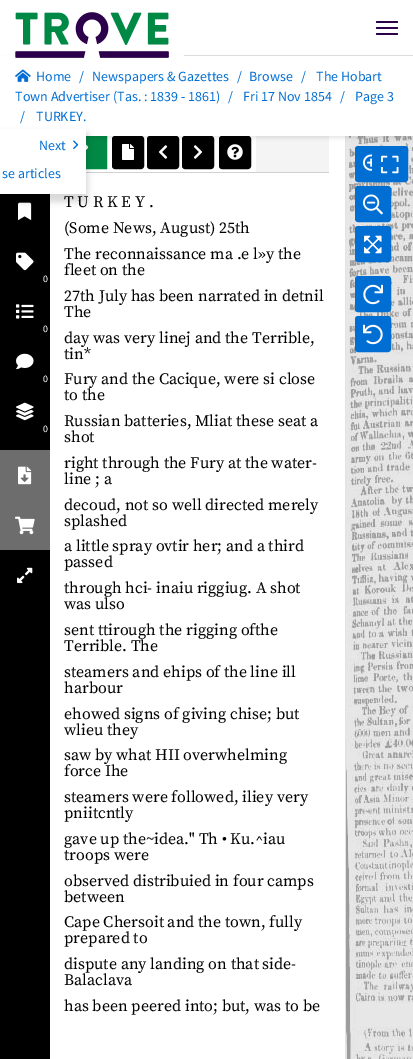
%!PS-Adobe-3.0
%%BoundingBox: 0 0 413 1059
%%LanguageLevel: 3
%%Pages: 1
%%EndComments
%%BeginProlog
/f { fill } bind def
/S { stroke } bind def
/q { gsave } bind def
/Q { grestore } bind def
/w { setlinewidth } bind def
/fn { [ exch dup neg 0 0 3 -1 roll 0 0 ] selectfont } def
/tx { moveto show } def
/bx { rectfill } def
/al { dup .setfillconstantalpha .setstrokeconstantalpha } def
/rr { 5 dict begin { /r /h /w /y /x } { exch def } forall
  x r add y moveto x w add y 2 copy h add r arct x w add y h add x 1 index r arct
  x y h add x y r arct x y 2 copy exch w add exch r arct closepath end } def
/sh { 12 dict begin { /a /b /q /h /w /y /x } { exch def } forall gsave /was 0 def
  9 -2 -9 { dup b mul 4 div /e exch def 1 sub .425 mul 2.718 exch exp 1 add a .99 .min exch div /now exch def
    1 1 now sub 1 was sub div sub al /was now def
    w h .min e 2 mul add 0 gt { x e sub y e sub w e 2 mul add h e 2 mul add
      q e add b .6 mul add w h .min 2 div e add .min 0 .max rr fill } if } for grestore end } def
/im { 5 dict begin { /h /w /y /x /name } { exch def } forall
  gsave x y translate w h scale
  w h 8 [w 0 0 h 0 0] name (r) file false 3 colorimage grestore end } def
%%EndProlog
%%BeginSetup
<< /PageSize [413 1059] /PageUsesTransparency true >> setpagedevice
%%EndSetup
%%Page: 1 1
0 .pushpdf14devicefilter
0 1059 translate 1 -1 scale
4 setmiterlimit
1 setgray
0 0 413 1059 bx
0.957 setgray
256 136 73 36 bx
0 0.537 0.267 setrgbcolor
86 138 19 29 bx
2 w
61 137 45 31 rectstroke
(image11.raw) 86 144 3 6 im
0 setgray
113 137 30 31 2 rr q f Q
S
(image12.raw) 122 144 12 16 im
148 137 30 31 2 rr q f Q
S
183 137 30 31 2 rr q f Q
S
220 137 30 31 2 rr q f Q
S
(image15.raw) 227 144 16 16 im
0.89 setgray
345 136 1 923 bx
(image16.raw) 346 136 19 75 im
(image17.raw) 365 136 48 75 im
(image18.raw) 346 211 19 256 im
(image19.raw) 365 211 48 256 im
0.7 al
0.867 setgray
346 136 67 96 bx
1 al
0 setgray
0 58 413 80 0 2 0.1 sh
0.867 setgray
184 55 229 1 bx
1 setgray
4 55 180 1 bx
0 56 413 80 bx
(image0.raw) 15 12 154 46 im
0.176 0 0.294 setrgbcolor
376 21 22 2 1 rr f
376 27 22 2 1 rr f
376 33 22 2 1 rr f
(image1.raw) 15 69 16 13 im
/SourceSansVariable-Regular 14 fn
0.004 0.431 0.827 setrgbcolor
(Home) 36 81 tx
(/) 79 81 tx
(Newspapers & Gazettes) 92 81 tx
(/) 237 81 tx
(Browse) 249 81 tx
(/) 301 81 tx
(The Hobart) 316 81 tx
(Town Advertiser \(Tas. : 1839 - 1861\)) 15 101 tx
(/) 228 101 tx
(Fri 17 Nov 1854) 243 101 tx
(/) 340 101 tx
(Page 3) 355 101 tx
(/) 20 121 tx
(TURKEY.) 36 121 tx
0 setgray
0 194 50 865 bx
(image3.raw) 18 202 14 19 im
0.82 setgray
86 172 243 1 bx
0 setgray
-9 133 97 69 0 3 0.15 sh
1 setgray
0 129 86 65 bx
0.004 0.431 0.827 setrgbcolor
(Next) 39 150 tx
(image2.raw) 73 140 6 10 im
(se articles) 2 178 tx
(image4.raw) 16 252 18 19 im
/SourceSansVariable-Regular 10 fn
1 setgray
(0) 43 282 tx
(image5.raw) 16 304 18 15 im
(0) 43 332 tx
(image6.raw) 16 353 18 17 im
(0) 43 382 tx
(image7.raw) 16 402 18 19 im
(0) 43 432 tx
0.427 setgray
0 450 50 100 bx
(image8.raw) 18 466 14 19 im
(image9.raw) 15 516 20 19 im
(image10.raw) 17 567 16 17 im
(image13.raw) 158 145 10 14 im
(image14.raw) 193 145 10 14 im
/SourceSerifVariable-Regular 16 fn
0 setgray
(T U R K E Y .) 64 207 tx
(\(Some News, August\) 25th) 64 233 tx
(The reconnaissance ma .e l»y the) 64 259 tx
(fleet on the) 64 275 tx
(27th July has been narrated in detnil) 64 301 tx
(The) 64 317 tx
(day was very linej and the Terrible,) 64 343 tx
(tin*) 64 359 tx
(Fury and the Cacique, were si close) 64 384 tx
(to the) 64 400 tx
(Russian batteries, Mliat these seat a) 64 426 tx
(shot) 64 442 tx
(right through the Fury at the water-) 64 468 tx
(line ; a) 64 484 tx
(decoud, not so well directed merely) 64 510 tx
(splashed) 64 526 tx
(a little spray ovtir her; and a third) 64 551 tx
(passed) 64 567 tx
(through hci- inaiu riggiug. A shot) 64 593 tx
(was ulso) 64 609 tx
(sent ttirough the rigging ofthe) 64 635 tx
(Terrible. The) 64 651 tx
(steamers and ehips of the line ill) 64 677 tx
(harbour) 64 693 tx
(ehowed signs of giving chise; but) 64 719 tx
(wlieu they) 64 735 tx
(saw by what HII overwhelming) 64 760 tx
(force Ihe) 64 776 tx
(steamers were followed, iliey very) 64 802 tx
(pniitcntly) 64 818 tx
(gave up the~idea." Th • Ku.^iau) 64 844 tx
(troops were) 64 860 tx
(observed distribuied in four camps) 64 886 tx
(between) 64 902 tx
(Cape Chersoit and the town, fully) 64 927 tx
(prepared to) 64 943 tx
(dispute any landing on that side-) 64 969 tx
(Balaclava) 64 985 tx
(has been peered into; but, was to be) 64 1011 tx
(image20.raw) 346 467 19 256 im
(image21.raw) 365 467 48 256 im
0.7 al
0.867 setgray
346 232 67 287 bx
1 al
(image22.raw) 346 723 19 256 im
(image23.raw) 365 723 48 256 im
(image24.raw) 346 979 19 80 im
(image25.raw) 365 979 48 80 im
0.7 al
346 519 67 540 bx
1 al
0.004 0.431 0.827 setrgbcolor
356 147 34 34 2 rr q f Q
S
(image26.raw) 363 154 9 17 im
373 147 34 34 2 rr q f Q
S
(image27.raw) 381 155 18 19 im
356 187 34 34 2 rr q f Q
S
(image28.raw) 363 194 20 21 im
356 227 34 34 2 rr q f Q
S
(image29.raw) 364 235 18 19 im
356 277 34 34 2 rr q f Q
S
(image30.raw) 363 284 20 21 im
356 317 34 34 2 rr q f Q
S
(image31.raw) 363 324 20 21 im
.poppdf14devicefilter showpage
%%EOF
